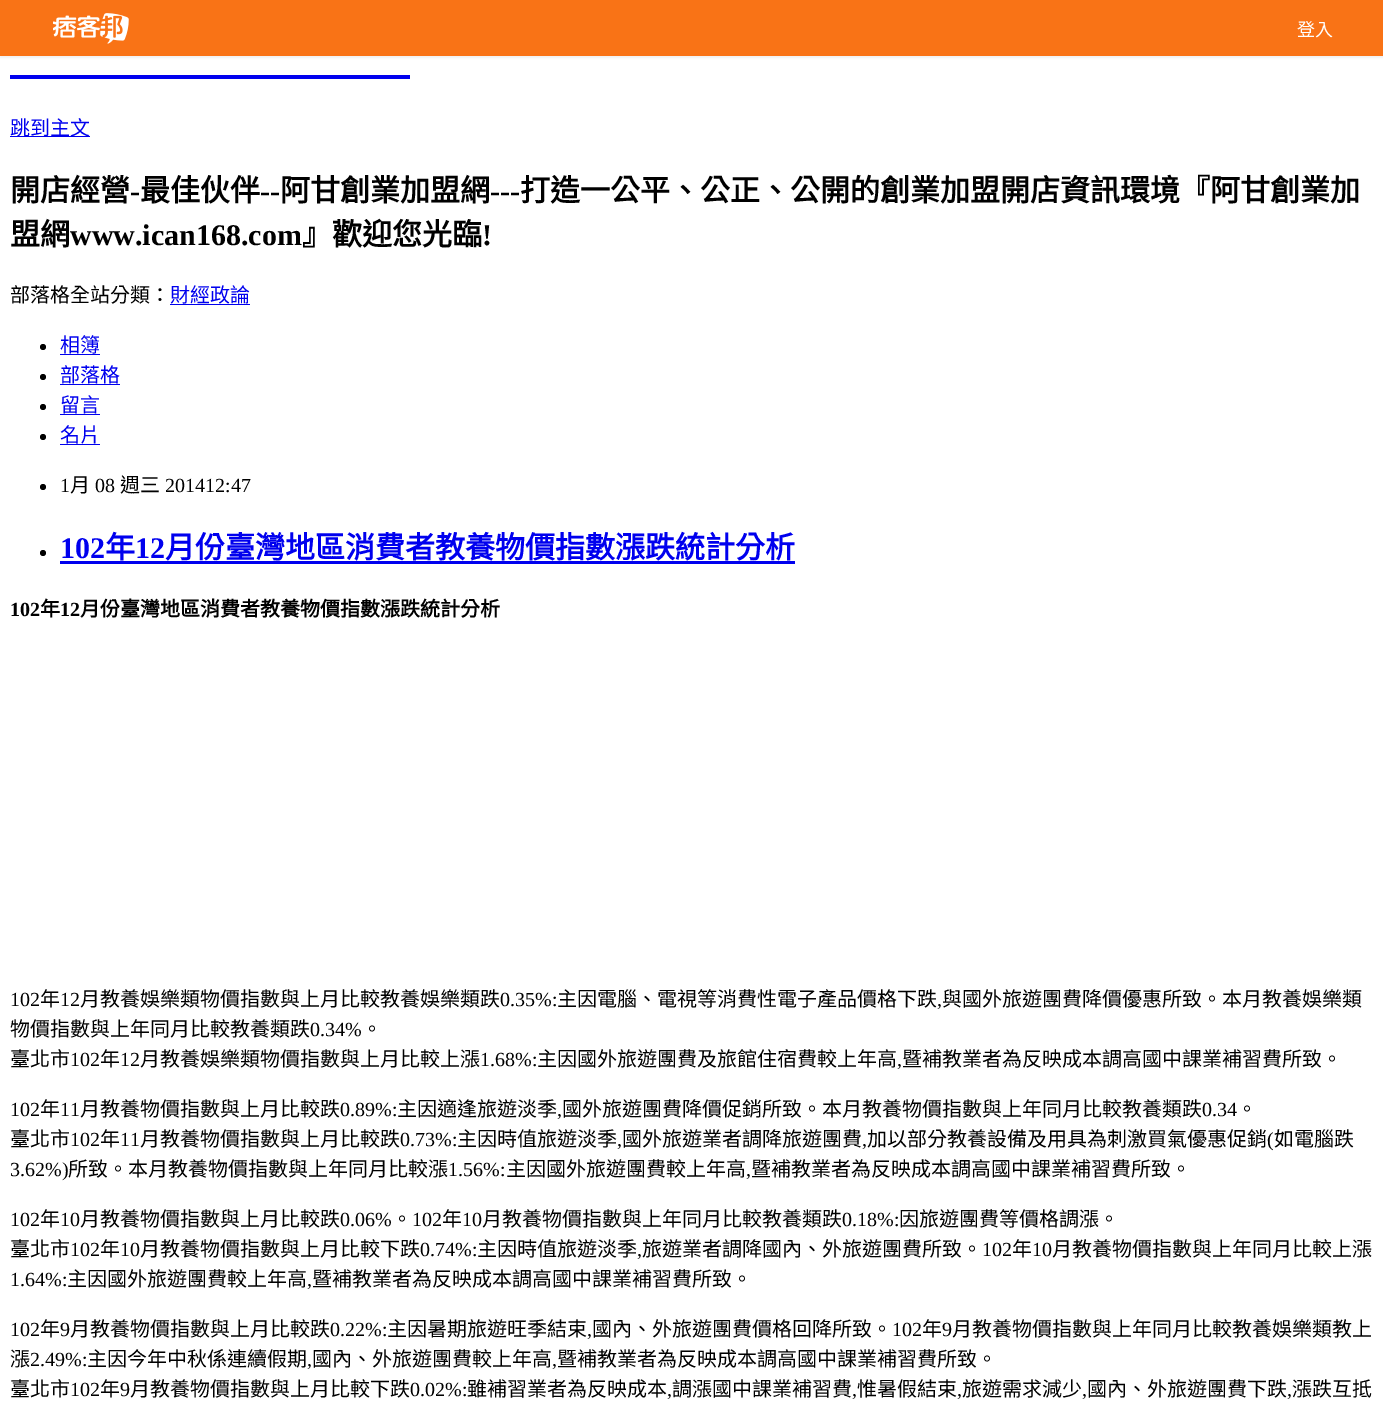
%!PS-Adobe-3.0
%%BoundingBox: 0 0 1383 1418
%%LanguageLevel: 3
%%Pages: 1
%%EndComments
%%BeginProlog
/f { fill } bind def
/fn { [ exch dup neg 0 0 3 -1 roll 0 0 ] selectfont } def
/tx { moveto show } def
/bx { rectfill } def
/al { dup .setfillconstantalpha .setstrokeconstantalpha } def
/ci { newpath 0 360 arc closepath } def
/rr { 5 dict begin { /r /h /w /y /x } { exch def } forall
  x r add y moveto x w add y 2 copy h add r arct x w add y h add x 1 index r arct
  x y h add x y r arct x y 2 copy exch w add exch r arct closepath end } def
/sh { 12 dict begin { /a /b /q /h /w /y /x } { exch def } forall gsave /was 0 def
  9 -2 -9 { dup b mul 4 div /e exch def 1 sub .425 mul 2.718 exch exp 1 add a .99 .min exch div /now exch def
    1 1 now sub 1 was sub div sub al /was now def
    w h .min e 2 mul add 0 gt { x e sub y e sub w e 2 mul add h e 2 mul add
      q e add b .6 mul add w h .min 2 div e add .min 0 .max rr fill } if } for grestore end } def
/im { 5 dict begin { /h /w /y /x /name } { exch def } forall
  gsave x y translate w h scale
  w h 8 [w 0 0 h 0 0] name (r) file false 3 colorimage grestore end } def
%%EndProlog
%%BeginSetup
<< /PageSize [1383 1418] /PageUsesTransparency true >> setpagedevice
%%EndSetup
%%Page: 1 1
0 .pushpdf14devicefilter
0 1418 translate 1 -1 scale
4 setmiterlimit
1 setgray
0 0 1383 1418 bx
0 setgray
0 1 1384 57 0 1 0.05 sh
0.976 0.451 0.086 setrgbcolor
0 0 1383 56 bx
(image0.raw) 53 13 76 31 im
/NotoSansCJKTC-Regular 18 fn
1 setgray
(登入) 1297 36 tx
0 0 0.933 setrgbcolor
10 75 400 4 bx
10 136 80 1 bx
/NotoSansCJKTC-Regular 20 fn
(跳到主文) 10 135 tx
/NotoSansCJKTC-Bold 30 fn
0 setgray
(開店經營) 10 201 tx
/LiberationSerif-Bold 30 fn
(-) 130 201 tx
/NotoSansCJKTC-Bold 30 fn
(最佳伙伴) 140 201 tx
/LiberationSerif-Bold 30 fn
(--) 260 201 tx
/NotoSansCJKTC-Bold 30 fn
(阿甘創業加盟網) 280 201 tx
/LiberationSerif-Bold 30 fn
(---) 490 201 tx
/NotoSansCJKTC-Bold 30 fn
(打造一公平、公正、公開的創業加盟開店資訊環境『阿甘創業加) 520 201 tx
(盟網) 10 245 tx
/LiberationSerif-Bold 30 fn
(www.ican168.com) 70 245 tx
/NotoSansCJKTC-Bold 30 fn
(』歡迎您光臨) 302 245 tx
/LiberationSerif-Bold 30 fn
(!) 482 245 tx
/NotoSansCJKTC-Regular 20 fn
(部落格全站分類：) 10 302 tx
0 0 0.933 setrgbcolor
(財經政論) 170 302 tx
170 304 80 1 bx
0 setgray
43 347 3 ci f
0 0 0.933 setrgbcolor
(相簿) 60 352 tx
60 354 40 1 bx
0 setgray
43 377 3 ci f
0 0 0.933 setrgbcolor
(部落格) 60 382 tx
60 384 60 1 bx
0 setgray
43 407 3 ci f
0 0 0.933 setrgbcolor
(留言) 60 412 tx
60 414 40 1 bx
0 setgray
43 437 3 ci f
0 0 0.933 setrgbcolor
(名片) 60 442 tx
60 444 40 1 bx
0 setgray
43 487 3 ci f
/LiberationSerif-Regular 20 fn
(1) 60 492 tx
/NotoSansCJKTC-Regular 20 fn
(月) 70 492 tx
/LiberationSerif-Regular 20 fn
(08) 95 492 tx
/NotoSansCJKTC-Regular 20 fn
(週三) 120 492 tx
/LiberationSerif-Regular 20 fn
(201412:47) 165 492 tx
43 553 3 ci f
/LiberationSerif-Bold 30 fn
0 0 0.933 setrgbcolor
(102) 60 558 tx
60 561 735 3 bx
/NotoSansCJKTC-Bold 30 fn
(年) 105 558 tx
/LiberationSerif-Bold 30 fn
(12) 135 558 tx
/NotoSansCJKTC-Bold 30 fn
(月份臺灣地區消費者教養物價指數漲跌統計分析) 165 558 tx
/LiberationSerif-Bold 20 fn
0 setgray
(102) 10 616 tx
/NotoSansCJKTC-Bold 20 fn
(年) 40 616 tx
/LiberationSerif-Bold 20 fn
(12) 60 616 tx
/NotoSansCJKTC-Bold 20 fn
(月份臺灣地區消費者教養物價指數漲跌統計分析) 80 616 tx
/LiberationSerif-Regular 20 fn
(102) 10 1006 tx
/NotoSansCJKTC-Regular 20 fn
(年) 40 1006 tx
/LiberationSerif-Regular 20 fn
(12) 60 1006 tx
/NotoSansCJKTC-Regular 20 fn
(月教養娛樂類物價指數與上月比較教養娛樂類跌) 80 1006 tx
/LiberationSerif-Regular 20 fn
(0.35%:) 500 1006 tx
/NotoSansCJKTC-Regular 20 fn
(主因電腦、電視等消費性電子產品價格下跌) 557 1006 tx
/LiberationSerif-Regular 20 fn
(,) 937 1006 tx
/NotoSansCJKTC-Regular 20 fn
(與國外旅遊團費降價優惠所致。本月教養娛樂類) 942 1006 tx
(物價指數與上年同月比較教養類跌) 10 1036 tx
/LiberationSerif-Regular 20 fn
(0.34%) 310 1036 tx
/NotoSansCJKTC-Regular 20 fn
(。) 362 1036 tx
(臺北市) 10 1066 tx
/LiberationSerif-Regular 20 fn
(102) 70 1066 tx
/NotoSansCJKTC-Regular 20 fn
(年) 100 1066 tx
/LiberationSerif-Regular 20 fn
(12) 120 1066 tx
/NotoSansCJKTC-Regular 20 fn
(月教養娛樂類物價指數與上月比較上漲) 140 1066 tx
/LiberationSerif-Regular 20 fn
(1.68%:) 480 1066 tx
/NotoSansCJKTC-Regular 20 fn
(主因國外旅遊團費及旅館住宿費較上年高) 537 1066 tx
/LiberationSerif-Regular 20 fn
(,) 897 1066 tx
/NotoSansCJKTC-Regular 20 fn
(暨補教業者為反映成本調高國中課業補習費所致。) 902 1066 tx
/LiberationSerif-Regular 20 fn
(102) 10 1116 tx
/NotoSansCJKTC-Regular 20 fn
(年) 40 1116 tx
/LiberationSerif-Regular 20 fn
(11) 60 1116 tx
/NotoSansCJKTC-Regular 20 fn
(月教養物價指數與上月比較跌) 80 1116 tx
/LiberationSerif-Regular 20 fn
(0.89%:) 340 1116 tx
/NotoSansCJKTC-Regular 20 fn
(主因適逢旅遊淡季) 397 1116 tx
(國外旅遊團費降價促銷所致。本月教養物價指數與上年同月比較教養類跌) 562 1116 tx
/LiberationSerif-Regular 20 fn
(0.34) 1202 1116 tx
/NotoSansCJKTC-Regular 20 fn
(。) 1237 1116 tx
/LiberationSerif-Regular 20 fn
(,) 557 1116 tx
/NotoSansCJKTC-Regular 20 fn
(臺北市) 10 1146 tx
/LiberationSerif-Regular 20 fn
(102) 70 1146 tx
/NotoSansCJKTC-Regular 20 fn
(年) 100 1146 tx
/LiberationSerif-Regular 20 fn
(11) 120 1146 tx
/NotoSansCJKTC-Regular 20 fn
(月教養物價指數與上月比較跌) 140 1146 tx
/LiberationSerif-Regular 20 fn
(0.73%:) 400 1146 tx
/NotoSansCJKTC-Regular 20 fn
(主因時值旅遊淡季) 457 1146 tx
/LiberationSerif-Regular 20 fn
(,) 617 1146 tx
/NotoSansCJKTC-Regular 20 fn
(國外旅遊業者調降旅遊團費) 622 1146 tx
/LiberationSerif-Regular 20 fn
(,) 862 1146 tx
/NotoSansCJKTC-Regular 20 fn
(加以部分教養設備及用具為刺激買氣優惠促銷) 867 1146 tx
/LiberationSerif-Regular 20 fn
(\() 1267 1146 tx
/NotoSansCJKTC-Regular 20 fn
(如電腦跌) 1274 1146 tx
/LiberationSerif-Regular 20 fn
(3.62%\)) 10 1176 tx
/NotoSansCJKTC-Regular 20 fn
(所致。本月教養物價指數與上年同月比較漲) 68 1176 tx
/LiberationSerif-Regular 20 fn
(1.56%:) 448 1176 tx
/NotoSansCJKTC-Regular 20 fn
(主因國外旅遊團費較上年高) 506 1176 tx
/LiberationSerif-Regular 20 fn
(,) 746 1176 tx
/NotoSansCJKTC-Regular 20 fn
(暨補教業者為反映成本調高國中課業補習費所致。) 751 1176 tx
/LiberationSerif-Regular 20 fn
(102) 10 1226 tx
/NotoSansCJKTC-Regular 20 fn
(年) 40 1226 tx
/LiberationSerif-Regular 20 fn
(10) 60 1226 tx
/NotoSansCJKTC-Regular 20 fn
(月教養物價指數與上月比較跌) 80 1226 tx
/LiberationSerif-Regular 20 fn
(0.06%) 340 1226 tx
/NotoSansCJKTC-Regular 20 fn
(。) 392 1226 tx
/LiberationSerif-Regular 20 fn
(102) 412 1226 tx
/NotoSansCJKTC-Regular 20 fn
(年) 442 1226 tx
/LiberationSerif-Regular 20 fn
(10) 462 1226 tx
/NotoSansCJKTC-Regular 20 fn
(月教養物價指數與上年同月比較教養類跌) 482 1226 tx
/LiberationSerif-Regular 20 fn
(0.18%:) 842 1226 tx
/NotoSansCJKTC-Regular 20 fn
(因旅遊團費等價格調漲。) 899 1226 tx
(臺北市) 10 1256 tx
/LiberationSerif-Regular 20 fn
(102) 70 1256 tx
/NotoSansCJKTC-Regular 20 fn
(年) 100 1256 tx
/LiberationSerif-Regular 20 fn
(10) 120 1256 tx
/NotoSansCJKTC-Regular 20 fn
(月教養物價指數與上月比較下跌) 140 1256 tx
/LiberationSerif-Regular 20 fn
(0.74%:) 420 1256 tx
/NotoSansCJKTC-Regular 20 fn
(主因時值旅遊淡季) 477 1256 tx
/LiberationSerif-Regular 20 fn
(,) 637 1256 tx
/NotoSansCJKTC-Regular 20 fn
(旅遊業者調降國內、外旅遊團費所致。) 642 1256 tx
/LiberationSerif-Regular 20 fn
(102) 982 1256 tx
/NotoSansCJKTC-Regular 20 fn
(年) 1012 1256 tx
/LiberationSerif-Regular 20 fn
(10) 1032 1256 tx
/NotoSansCJKTC-Regular 20 fn
(月教養物價指數與上年同月比較上漲) 1052 1256 tx
/LiberationSerif-Regular 20 fn
(1.64%:) 10 1286 tx
/NotoSansCJKTC-Regular 20 fn
(主因國外旅遊團費較上年高) 67 1286 tx
/LiberationSerif-Regular 20 fn
(,) 307 1286 tx
/NotoSansCJKTC-Regular 20 fn
(暨補教業者為反映成本調高國中課業補習費所致。) 312 1286 tx
/LiberationSerif-Regular 20 fn
(102) 10 1336 tx
/NotoSansCJKTC-Regular 20 fn
(年) 40 1336 tx
/LiberationSerif-Regular 20 fn
(9) 60 1336 tx
/NotoSansCJKTC-Regular 20 fn
(月教養物價指數與上月比較跌) 70 1336 tx
/LiberationSerif-Regular 20 fn
(0.22%:) 330 1336 tx
/NotoSansCJKTC-Regular 20 fn
(主因暑期旅遊旺季結束) 387 1336 tx
/LiberationSerif-Regular 20 fn
(,) 587 1336 tx
/NotoSansCJKTC-Regular 20 fn
(國內、外旅遊團費價格回降所致。) 592 1336 tx
/LiberationSerif-Regular 20 fn
(102) 892 1336 tx
/NotoSansCJKTC-Regular 20 fn
(年) 922 1336 tx
/LiberationSerif-Regular 20 fn
(9) 942 1336 tx
/NotoSansCJKTC-Regular 20 fn
(月教養物價指數與上年同月比較教養娛樂類教上) 952 1336 tx
(漲) 10 1366 tx
/LiberationSerif-Regular 20 fn
(2.49%:) 30 1366 tx
/NotoSansCJKTC-Regular 20 fn
(主因今年中秋係連續假期) 87 1366 tx
/LiberationSerif-Regular 20 fn
(,) 307 1366 tx
/NotoSansCJKTC-Regular 20 fn
(國內、外旅遊團費較上年高) 312 1366 tx
/LiberationSerif-Regular 20 fn
(,) 552 1366 tx
/NotoSansCJKTC-Regular 20 fn
(暨補教業者為反映成本調高國中課業補習費所致。) 557 1366 tx
(臺北市) 10 1396 tx
/LiberationSerif-Regular 20 fn
(102) 70 1396 tx
/NotoSansCJKTC-Regular 20 fn
(年) 100 1396 tx
/LiberationSerif-Regular 20 fn
(9) 120 1396 tx
/NotoSansCJKTC-Regular 20 fn
(月教養物價指數與上月比較下跌) 130 1396 tx
/LiberationSerif-Regular 20 fn
(0.02%:) 410 1396 tx
/NotoSansCJKTC-Regular 20 fn
(雖補習業者為反映成本) 467 1396 tx
/LiberationSerif-Regular 20 fn
(,) 667 1396 tx
/NotoSansCJKTC-Regular 20 fn
(調漲國中課業補習費) 672 1396 tx
/LiberationSerif-Regular 20 fn
(,) 852 1396 tx
/NotoSansCJKTC-Regular 20 fn
(惟暑假結束) 857 1396 tx
/LiberationSerif-Regular 20 fn
(,) 957 1396 tx
/NotoSansCJKTC-Regular 20 fn
(旅遊需求減少) 962 1396 tx
/LiberationSerif-Regular 20 fn
(,) 1082 1396 tx
/NotoSansCJKTC-Regular 20 fn
(國內、外旅遊團費下跌) 1087 1396 tx
/LiberationSerif-Regular 20 fn
(,) 1287 1396 tx
/NotoSansCJKTC-Regular 20 fn
(漲跌互抵) 1292 1396 tx
.poppdf14devicefilter showpage
%%EOF
